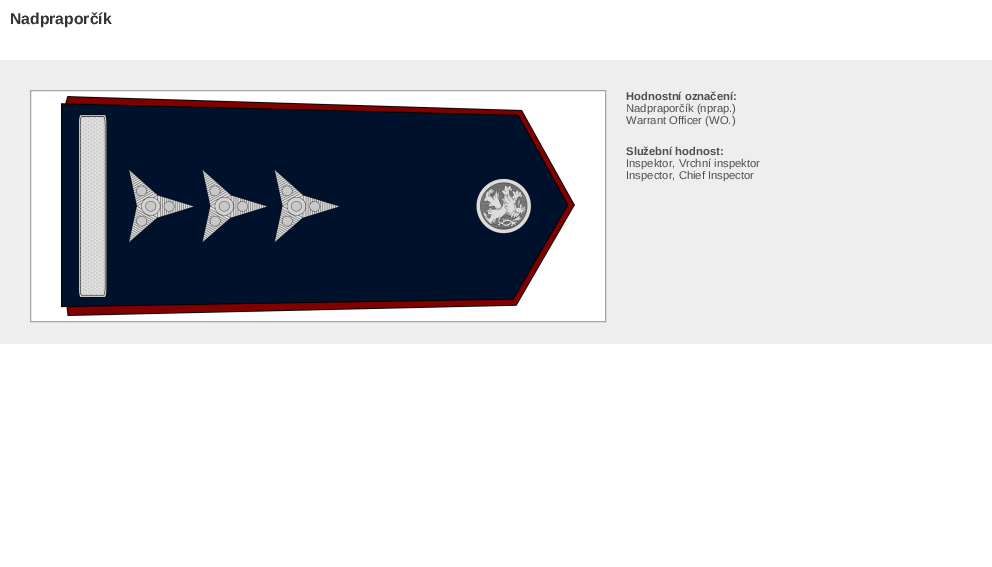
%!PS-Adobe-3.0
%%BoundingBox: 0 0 992 567
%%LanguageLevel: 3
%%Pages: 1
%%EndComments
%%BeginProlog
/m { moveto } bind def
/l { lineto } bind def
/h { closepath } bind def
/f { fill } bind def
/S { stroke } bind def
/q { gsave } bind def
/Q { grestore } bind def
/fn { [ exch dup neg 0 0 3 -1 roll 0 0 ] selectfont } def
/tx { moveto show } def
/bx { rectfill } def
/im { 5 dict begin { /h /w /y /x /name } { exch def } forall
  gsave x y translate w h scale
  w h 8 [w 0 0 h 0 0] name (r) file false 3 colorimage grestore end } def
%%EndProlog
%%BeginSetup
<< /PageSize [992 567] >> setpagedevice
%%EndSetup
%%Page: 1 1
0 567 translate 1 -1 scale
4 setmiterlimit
1 setgray
0 0 992 567 bx
/LiberationSans-Bold 15.75 fn
0.2 setgray
(Nadpraporčík) 10 24 tx
0.933 setgray
0 60 992 284 bx
1 setgray
30.5 90.5 m 605.5 90.5 l 605.5 321.5 l 30.5 321.5 l h q f Q
0.647 setgray
S
(image0.raw) 61 96 514 220 im
/LiberationSans-Bold 11.25 fn
0.31 setgray
(Hodnostní označení:) 626 100 tx
/LiberationSans-Regular 11.25 fn
(Nadpraporčík \(nprap.\)) 626 112 tx
(Warrant Officer \(WO.\)) 626 124 tx
/LiberationSans-Bold 11.25 fn
(Služební hodnost:) 626 155 tx
/LiberationSans-Regular 11.25 fn
(Inspektor, Vrchní inspektor) 626 167 tx
(Inspector, Chief Inspector) 626 179 tx
showpage
%%EOF
